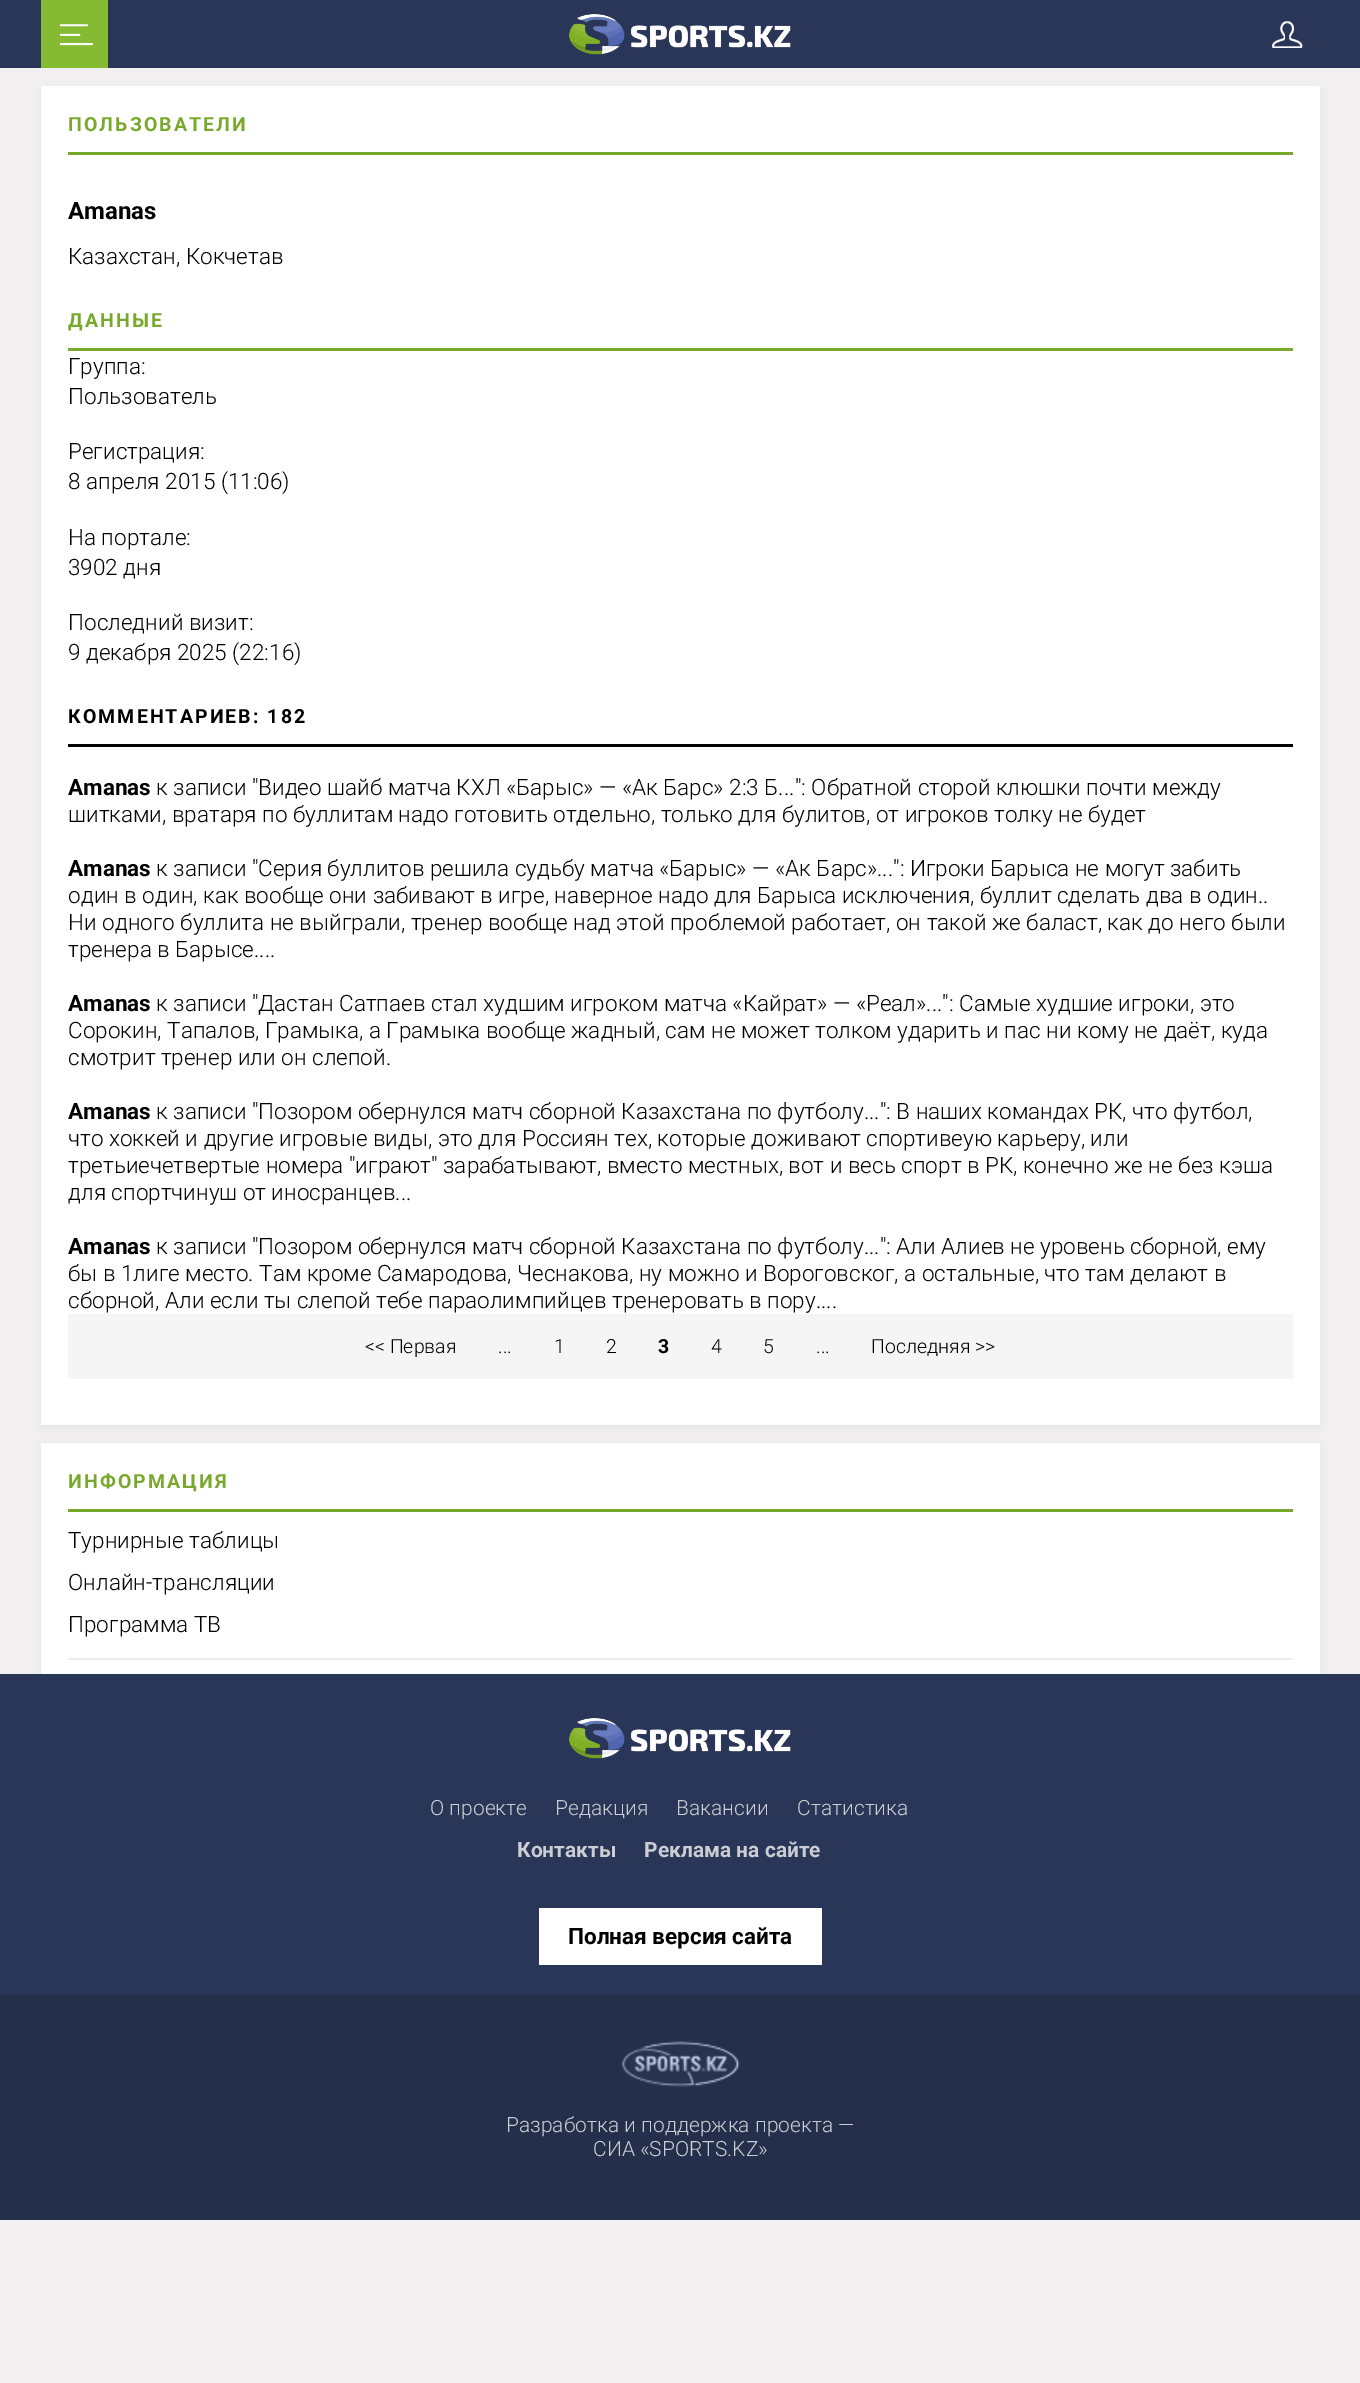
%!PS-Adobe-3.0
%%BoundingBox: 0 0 1360 2383
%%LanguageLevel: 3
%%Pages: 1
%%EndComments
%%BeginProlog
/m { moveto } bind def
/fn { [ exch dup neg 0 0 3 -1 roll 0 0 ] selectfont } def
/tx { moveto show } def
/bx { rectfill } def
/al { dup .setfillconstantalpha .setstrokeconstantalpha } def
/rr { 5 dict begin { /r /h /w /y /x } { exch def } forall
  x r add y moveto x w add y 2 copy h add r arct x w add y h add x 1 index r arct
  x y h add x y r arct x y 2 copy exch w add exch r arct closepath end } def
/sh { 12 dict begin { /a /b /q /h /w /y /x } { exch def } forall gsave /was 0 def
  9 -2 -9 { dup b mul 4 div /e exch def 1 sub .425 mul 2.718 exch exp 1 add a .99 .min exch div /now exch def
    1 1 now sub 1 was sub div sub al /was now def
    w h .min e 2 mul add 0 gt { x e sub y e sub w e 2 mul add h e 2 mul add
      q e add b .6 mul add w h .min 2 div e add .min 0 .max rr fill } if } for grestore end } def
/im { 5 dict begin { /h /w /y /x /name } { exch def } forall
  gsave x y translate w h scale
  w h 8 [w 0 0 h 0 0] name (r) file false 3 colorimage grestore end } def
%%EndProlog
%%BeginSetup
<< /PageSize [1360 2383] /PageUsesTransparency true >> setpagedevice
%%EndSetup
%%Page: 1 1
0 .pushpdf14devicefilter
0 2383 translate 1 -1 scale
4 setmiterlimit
0.949 0.941 0.941 setrgbcolor
0 0 1360 2383 bx
0.161 0.212 0.341 setrgbcolor
0 0 1360 68 bx
0.522 0.729 0.2 setrgbcolor
41 0 67 68 bx
(image0.raw) 60 24 33 22 im
(image1.raw) 569 14 222 41 im
(image2.raw) 1272 21 31 27 im
0 setgray
41 89 1279 1339 0 6 0.05 sh
1 setgray
41 86 1279 1339 bx
0.471 0.663 0.173 setrgbcolor
68 152 1225 3 bx
/Roboto-Bold 19.5 fn
68 131 m 2.1 0 (ПОЛЬЗОВАТЕЛИ) ashow
/Roboto-Bold 24 fn
0 setgray
(Amanas) 68 219 tx
/Roboto-Light 22.5 fn
(Казахстан, Кокчетав) 68 264 tx
0.471 0.663 0.173 setrgbcolor
68 348 1225 3 bx
/Roboto-Bold 19.5 fn
68 327 m 2.1 0 (ДАННЫЕ) ashow
/Roboto-Light 22.5 fn
0 setgray
(Группа:) 68 374 tx
(Пользователь) 68 404 tx
(Регистрация:) 68 459 tx
(8 апреля 2015 \(11:06\)) 68 489 tx
(На портале:) 68 545 tx
(3902 дня) 68 575 tx
(Последний визит:) 68 630 tx
(9 декабря 2025 \(22:16\)) 68 660 tx
68 744 1225 3 bx
/Roboto-Bold 19.5 fn
68 723 m 2.1 0 (КОММЕНТАРИЕВ: 182) ashow
/Roboto-Bold 22.5 fn
(Amanas) 68 795 tx
/Roboto-Light 22.5 fn
(к записи "Видео шайб матча КХЛ «Барыс» — «Ак Барс» 2:3 Б...": Обратной сторой клюшки почти между) 156 795 tx
(шитками, вратаря по буллитам надо готовить отдельно, только для булитов, от игроков толку не будет) 68 822 tx
/Roboto-Bold 22.5 fn
(Amanas) 68 876 tx
/Roboto-Light 22.5 fn
(к записи "Серия буллитов решила судьбу матча «Барыс» — «Ак Барс»...": Игроки Барыса не могут забить) 156 876 tx
(один в один, как вообще они забивают в игре, наверное надо для Барыса исключения, буллит сделать два в один..) 68 903 tx
(Ни одного буллита не выйграли, тренер вообще над этой проблемой работает, он такой же баласт, как до него были) 68 930 tx
(тренера в Барысе....) 68 957 tx
/Roboto-Bold 22.5 fn
(Amanas) 68 1011 tx
/Roboto-Light 22.5 fn
(к записи "Дастан Сатпаев стал худшим игроком матча «Кайрат» — «Реал»...": Самые худшие игроки, это) 156 1011 tx
(Сорокин, Тапалов, Грамыка, а Грамыка вообще жадный, сам не может толком ударить и пас ни кому не даёт, куда) 68 1038 tx
(смотрит тренер или он слепой.) 68 1065 tx
/Roboto-Bold 22.5 fn
(Amanas) 68 1119 tx
/Roboto-Light 22.5 fn
(к записи "Позором обернулся матч сборной Казахстана по футболу...": В наших командах РК, что футбол,) 156 1119 tx
(что хоккей и другие игровые виды, это для Россиян тех, которые доживают спортивеую карьеру, или) 68 1146 tx
(третьиечетвертые номера "играют" зарабатывают, вместо местных, вот и весь спорт в РК, конечно же не без кэша) 68 1173 tx
(для спортчинуш от иносранцев...) 68 1200 tx
/Roboto-Bold 22.5 fn
(Amanas) 68 1254 tx
/Roboto-Light 22.5 fn
(к записи "Позором обернулся матч сборной Казахстана по футболу...": Али Алиев не уровень сборной, ему) 156 1254 tx
(бы в 1лиге место. Там кроме Самародова, Чеснакова, ну можно и Вороговског, а остальные, что там делают в) 68 1281 tx
(сборной, Али если ты слепой тебе параолимпийцев тренеровать в пору....) 68 1308 tx
0.961 setgray
68 1314 1225 65 bx
/Roboto-Light 19.5 fn
0 setgray
(<< Первая) 365 1353 tx
(...) 498 1353 tx
(1) 554 1353 tx
(2) 606 1353 tx
/Roboto-Bold 19.5 fn
(3) 658 1353 tx
/Roboto-Light 19.5 fn
(4) 711 1353 tx
(5) 763 1353 tx
(...) 816 1353 tx
(Последняя >>) 871 1353 tx
41 1446 1279 231 0 6 0.05 sh
1 setgray
41 1443 1279 231 bx
0.471 0.663 0.173 setrgbcolor
68 1509 1225 3 bx
/Roboto-Bold 19.5 fn
68 1488 m 2.1 0 (ИНФОРМАЦИЯ) ashow
0.929 setgray
68 1658 1225 2 bx
/Roboto-Light 22.5 fn
0 setgray
(Турнирные таблицы) 68 1548 tx
(Онлайн-трансляции) 68 1590 tx
(Программа ТВ) 68 1632 tx
0.161 0.212 0.341 setrgbcolor
0 1674 1360 321 bx
(image1.raw) 569 1718 222 41 im
/Roboto-Light 21 fn
0.8 0.808 0.827 setrgbcolor
(О проекте) 430 1815 tx
(Редакция) 555 1815 tx
(Вакансии) 676 1815 tx
(Статистика) 797 1815 tx
/Roboto-Bold 21 fn
(Контакты) 517 1857 tx
(Реклама на сайте) 644 1857 tx
1 setgray
539 1908 283 57 bx
/Roboto-Bold 22.5 fn
0 setgray
(Полная версия сайта) 568 1944 tx
0.141 0.184 0.294 setrgbcolor
0 1995 1360 225 bx
(image3.raw) 621 2041 119 46 im
/Roboto-Light 21 fn
0.8 0.808 0.827 setrgbcolor
(Разработка и поддержка проекта —) 506 2132 tx
(СИА «SPORTS.KZ») 593 2156 tx
.poppdf14devicefilter showpage
%%EOF
